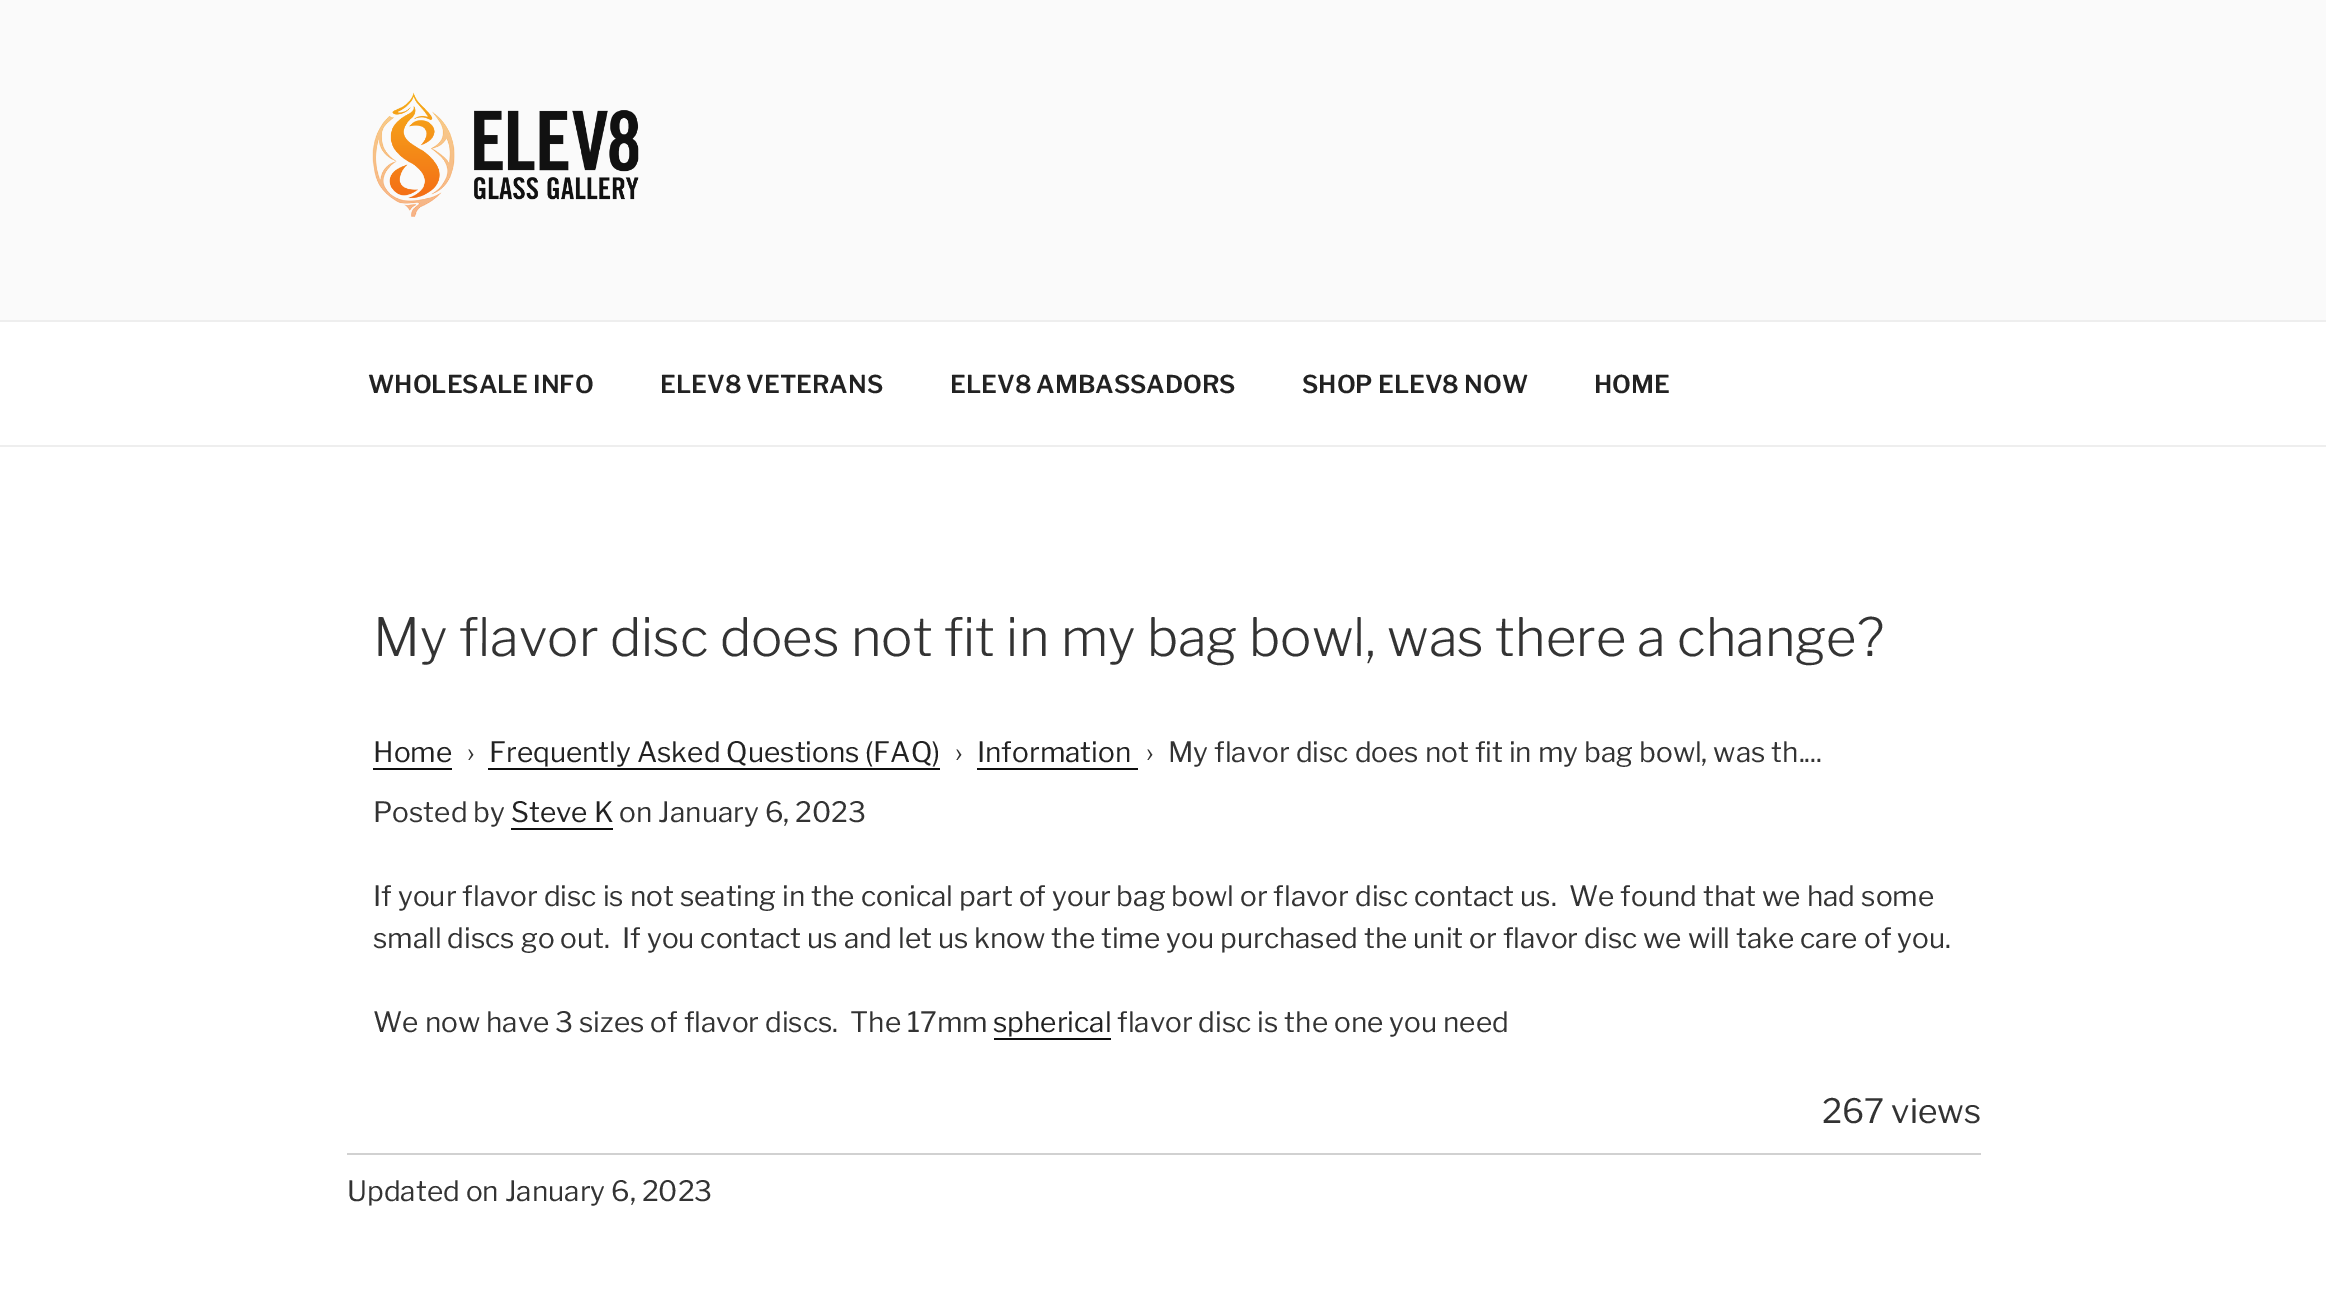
%!PS-Adobe-3.0
%%BoundingBox: 0 0 2326 1304
%%LanguageLevel: 3
%%Pages: 1
%%EndComments
%%BeginProlog
/fn { [ exch dup neg 0 0 3 -1 roll 0 0 ] selectfont } def
/tx { moveto show } def
/bx { rectfill } def
/im { 5 dict begin { /h /w /y /x /name } { exch def } forall
  gsave x y translate w h scale
  w h 8 [w 0 0 h 0 0] name (r) file false 3 colorimage grestore end } def
%%EndProlog
%%BeginSetup
<< /PageSize [2326 1304] >> setpagedevice
%%EndSetup
%%Page: 1 1
0 1304 translate 1 -1 scale
4 setmiterlimit
1 setgray
0 0 2326 1304 bx
0.98 setgray
0 0 2326 320 bx
(image0.raw) 372 92 267 125 im
0.933 setgray
0 320 2326 2 bx
0 445 2326 2 bx
/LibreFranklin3-Thin 24.5 fn
0.133 setgray
(WHOLESALE INFO) 368 393 tx
(ELEV8 VETERANS) 660 393 tx
(ELEV8 AMBASSADORS) 950 393 tx
(SHOP ELEV8 NOW) 1302 393 tx
(HOME) 1594 393 tx
/LibreFranklin-Thin 52.5 fn
0.2 setgray
(My flavor disc does not fit in my bag bowl, was there a change?) 373 656 tx
/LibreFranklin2-Thin 28 fn
0.133 setgray
(Home) 373 762 tx
0.059 setgray
373 768 79 2 bx
0.2 setgray
(›) 467 762 tx
0.133 setgray
(Frequently Asked Questions \(FAQ\)) 489 762 tx
0.059 setgray
488 768 452 2 bx
0.2 setgray
(›) 955 762 tx
0.133 setgray
(Information) 977 762 tx
0.059 setgray
977 768 161 2 bx
0.2 setgray
(›) 1146 762 tx
(My flavor disc does not fit in my bag bowl, was th....) 1168 762 tx
(Posted by) 373 822 tx
0.133 setgray
(Steve K) 511 822 tx
0.059 setgray
511 828 102 2 bx
0.2 setgray
(on January 6, 2023) 619 822 tx
(If your flavor disc is not seating in the conical part of your bag bowl or flavor disc contact us.  We found that we had some) 373 906 tx
(small discs go out.  If you contact us and let us know the time you purchased the unit or flavor disc we will take care of you.) 373 948 tx
(We now have 3 sizes of flavor discs.  The 17mm) 373 1032 tx
0.133 setgray
(spherical) 993 1032 tx
0.059 setgray
994 1038 117 2 bx
0.2 setgray
(flavor disc is the one you need) 1117 1032 tx
/LibreFranklin2-Thin 33.5 fn
(267 views) 1822 1123 tx
0.82 setgray
347 1153 1634 2 bx
/LibreFranklin2-Thin 28 fn
0.2 setgray
(Updated on January 6, 2023) 347 1201 tx
showpage
%%EOF
